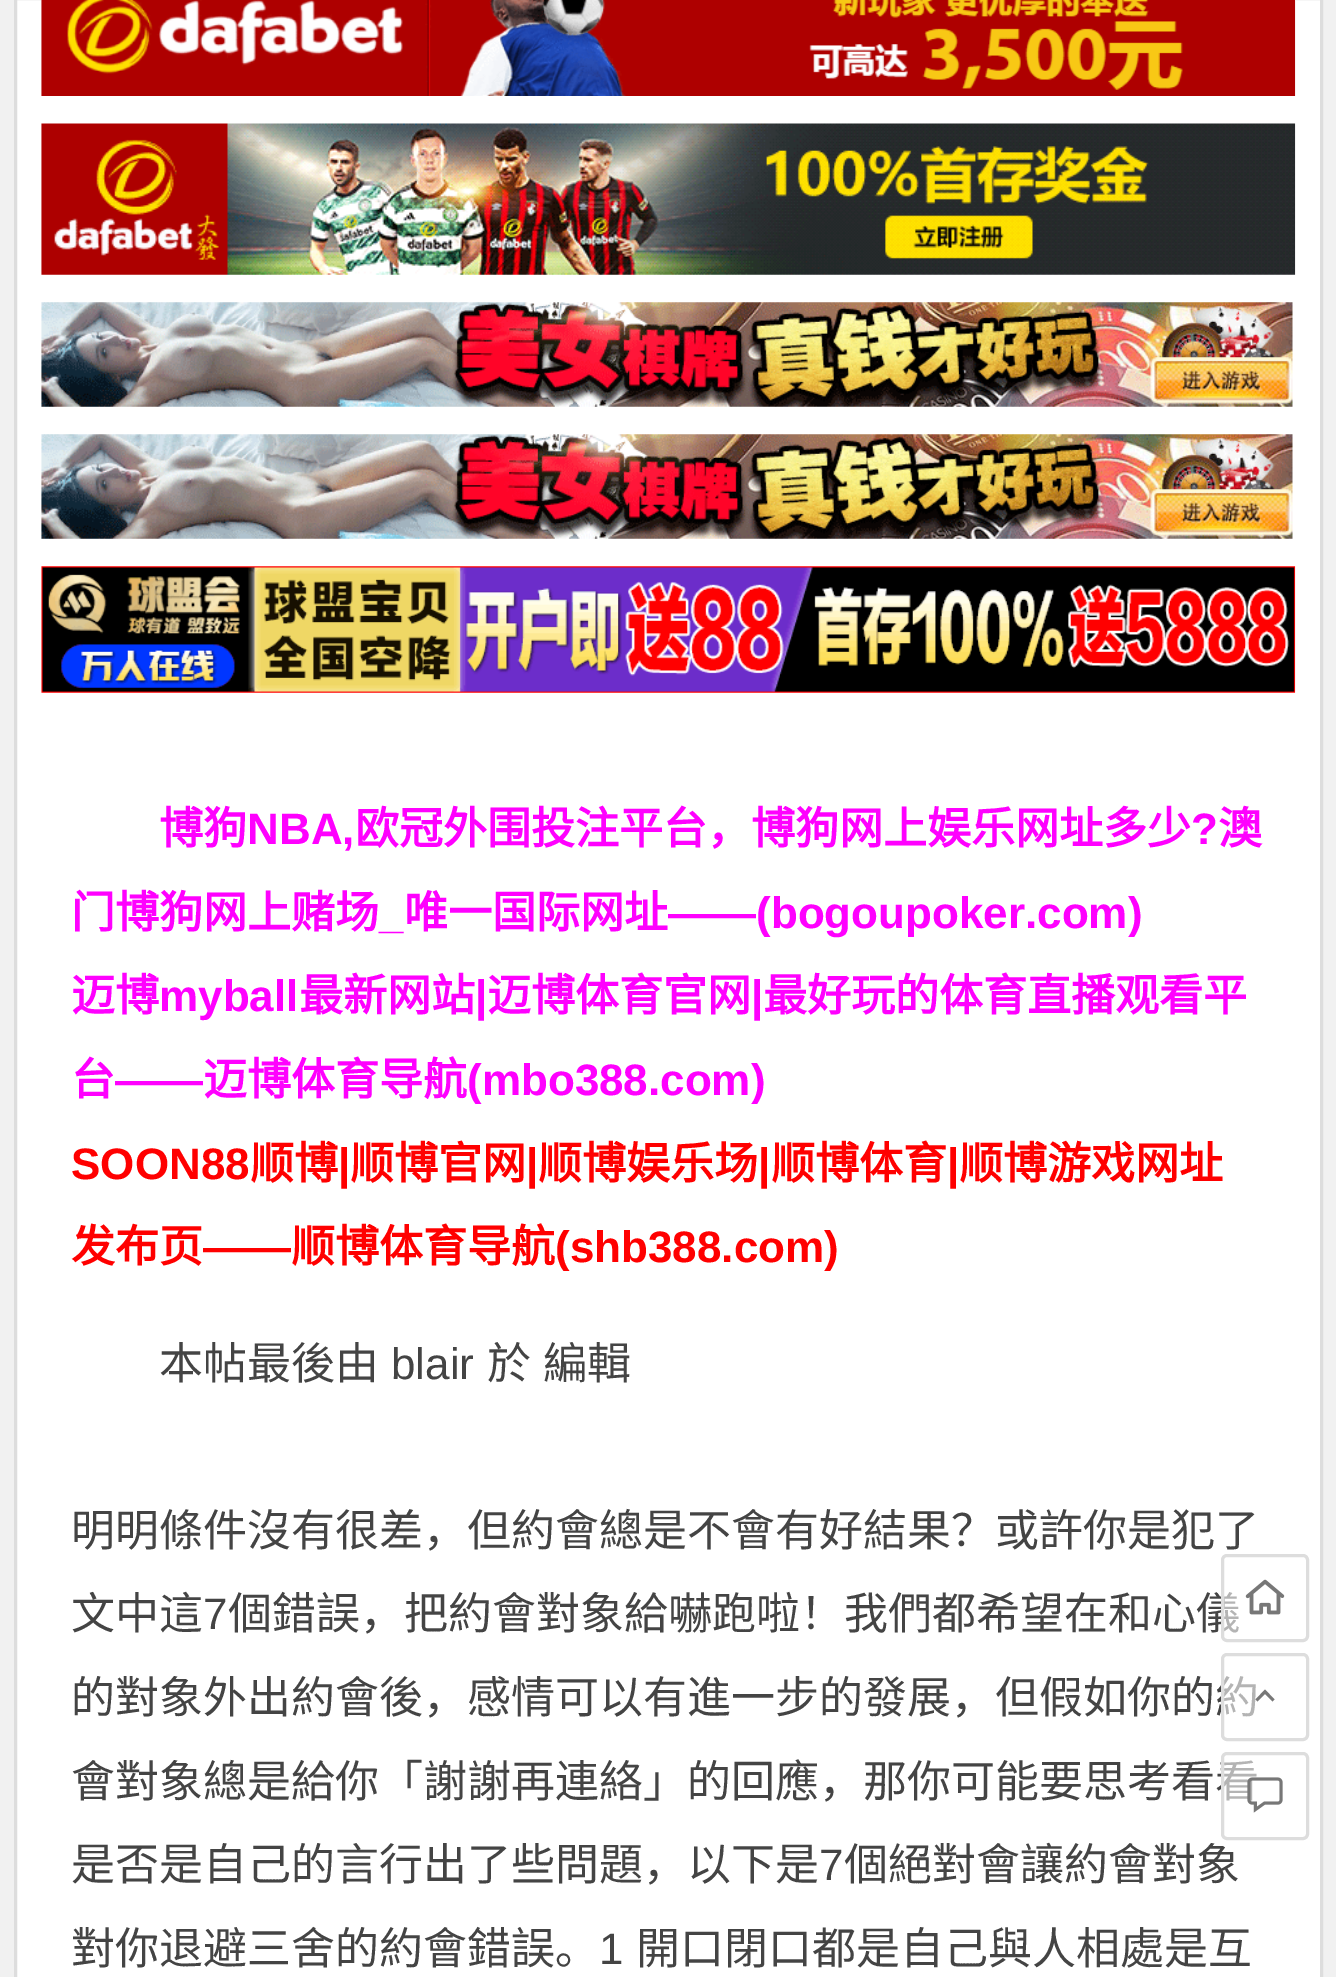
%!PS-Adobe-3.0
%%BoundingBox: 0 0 1336 1977
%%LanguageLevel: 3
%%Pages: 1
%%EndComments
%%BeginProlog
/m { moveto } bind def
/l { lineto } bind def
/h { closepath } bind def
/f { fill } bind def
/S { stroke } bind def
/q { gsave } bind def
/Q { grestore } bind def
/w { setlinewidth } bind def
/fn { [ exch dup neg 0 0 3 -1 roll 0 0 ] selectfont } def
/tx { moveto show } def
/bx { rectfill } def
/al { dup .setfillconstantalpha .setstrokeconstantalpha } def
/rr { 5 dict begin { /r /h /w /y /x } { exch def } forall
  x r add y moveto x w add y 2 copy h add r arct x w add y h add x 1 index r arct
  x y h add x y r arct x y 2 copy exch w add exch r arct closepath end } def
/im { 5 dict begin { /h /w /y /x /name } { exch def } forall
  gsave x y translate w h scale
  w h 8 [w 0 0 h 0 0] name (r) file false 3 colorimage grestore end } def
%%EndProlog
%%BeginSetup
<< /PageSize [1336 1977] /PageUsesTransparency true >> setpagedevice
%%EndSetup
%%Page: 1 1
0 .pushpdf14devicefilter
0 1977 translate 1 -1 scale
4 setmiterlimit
0.945 setgray
0 0 1336 1977 bx
1 setgray
15.5 -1.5 m 1321.5 -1.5 l 1321.5 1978.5 l 15.5 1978.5 l h q f Q
0.867 setgray
3 w
S
(image0.raw) 41 0 1255 96 im
(image1.raw) 41 123 1255 152 im
(image2.raw) 41 302 1252 105 im
(image2.raw) 41 434 1252 105 im
(image3.raw) 41 566 1255 127 im
/NotoSansCJKSC-Bold 44 fn
1 0 1 setrgbcolor
(博狗) 159 844 tx
/LiberationSans-Bold 44 fn
(NBA,) 247 844 tx
/NotoSansCJKSC-Bold 44 fn
(欧冠外围投注平台，博狗网上娱乐网址多少) 355 844 tx
/LiberationSans-Bold 44 fn
(?) 1191 844 tx
/NotoSansCJKSC-Bold 44 fn
(澳) 1218 844 tx
(门博狗网上赌场) 71 928 tx
/LiberationSans-Bold 44 fn
(_) 379 928 tx
/NotoSansCJKSC-Bold 44 fn
(唯一国际网址) 404 928 tx
/LiberationSans-Bold 44 fn
(——\(bogoupoker.com\)) 668 928 tx
/NotoSansCJKSC-Bold 44 fn
(迈博) 71 1011 tx
/LiberationSans-Bold 44 fn
(myball) 159 1011 tx
/NotoSansCJKSC-Bold 44 fn
(最新网站) 299 1011 tx
/LiberationSans-Bold 44 fn
(|) 475 1011 tx
/NotoSansCJKSC-Bold 44 fn
(迈博体育官网) 487 1011 tx
/LiberationSans-Bold 44 fn
(|) 751 1011 tx
/NotoSansCJKSC-Bold 44 fn
(最好玩的体育直播观看平) 763 1011 tx
(台) 71 1095 tx
/LiberationSans-Bold 44 fn
(——) 115 1095 tx
/NotoSansCJKSC-Bold 44 fn
(迈博体育导航) 203 1095 tx
/LiberationSans-Bold 44 fn
(\(mbo388.com\)) 467 1095 tx
1 0 0 setrgbcolor
(SOON88) 71 1179 tx
/NotoSansCJKSC-Bold 44 fn
(顺博) 250 1179 tx
/LiberationSans-Bold 44 fn
(|) 338 1179 tx
/NotoSansCJKSC-Bold 44 fn
(顺博官网) 350 1179 tx
/LiberationSans-Bold 44 fn
(|) 526 1179 tx
/NotoSansCJKSC-Bold 44 fn
(顺博娱乐场) 538 1179 tx
/LiberationSans-Bold 44 fn
(|) 758 1179 tx
/NotoSansCJKSC-Bold 44 fn
(顺博体育) 771 1179 tx
/LiberationSans-Bold 44 fn
(|) 947 1179 tx
/NotoSansCJKSC-Bold 44 fn
(顺博游戏网址) 959 1179 tx
(发布页) 71 1262 tx
/LiberationSans-Bold 44 fn
(——) 203 1262 tx
/NotoSansCJKSC-Bold 44 fn
(顺博体育导航) 291 1262 tx
/LiberationSans-Bold 44 fn
(\(shb388.com\)) 555 1262 tx
/NotoSansCJKSC-Regular 44 fn
0.267 setgray
(本帖最後由) 159 1379 tx
/LiberationSans-Regular 44 fn
(blair) 391 1379 tx
/NotoSansCJKSC-Regular 44 fn
(於) 487 1379 tx
(編輯) 543 1379 tx
(明明條件沒有很差，但約會總是不會有好結果？或許你是犯了) 71 1546 tx
(文中這) 71 1629 tx
/LiberationSans-Regular 44 fn
(7) 203 1629 tx
/NotoSansCJKSC-Regular 44 fn
(個錯誤，把約會對象給嚇跑啦！我們都希望在和心儀) 228 1629 tx
(的對象外出約會後，感情可以有進一步的發展，但假如你的約) 71 1713 tx
(會對象總是給你「謝謝再連絡」的回應，那你可能要思考看看) 71 1797 tx
(是否是自己的言行出了些問題，以下是) 71 1880 tx
/LiberationSans-Regular 44 fn
(7) 819 1880 tx
/NotoSansCJKSC-Regular 44 fn
(個絕對會讓約會對象) 844 1880 tx
(對你退避三舍的約會錯誤。) 71 1964 tx
/LiberationSans-Regular 44 fn
(1) 599 1964 tx
/NotoSansCJKSC-Regular 44 fn
(開口閉口都是自己與人相處是互) 636 1964 tx
0.6 al
1 setgray
1222.5 1555.5 85 85 4.5 rr f
1 al
0.867 setgray
1222.5 1555.5 85 85 4.5 rr S
(image4.raw) 1245 1579 40 36 im
0.6 al
1 setgray
1222.5 1654.5 85 85 4.5 rr f
1 al
0.867 setgray
1222.5 1654.5 85 85 4.5 rr S
0.467 setgray
1257.5 1701.5 m 1265 1694 l 1272.5 1701.5 l 1274.5 1699.5 l 1265 1689.5 l 1255.5 1699.5 l h f
0.6 al
1 setgray
1222.5 1753.5 85 85 4.5 rr f
1 al
0.867 setgray
1222.5 1753.5 85 85 4.5 rr S
(image5.raw) 1247 1777 36 36 im
.poppdf14devicefilter showpage
%%EOF
